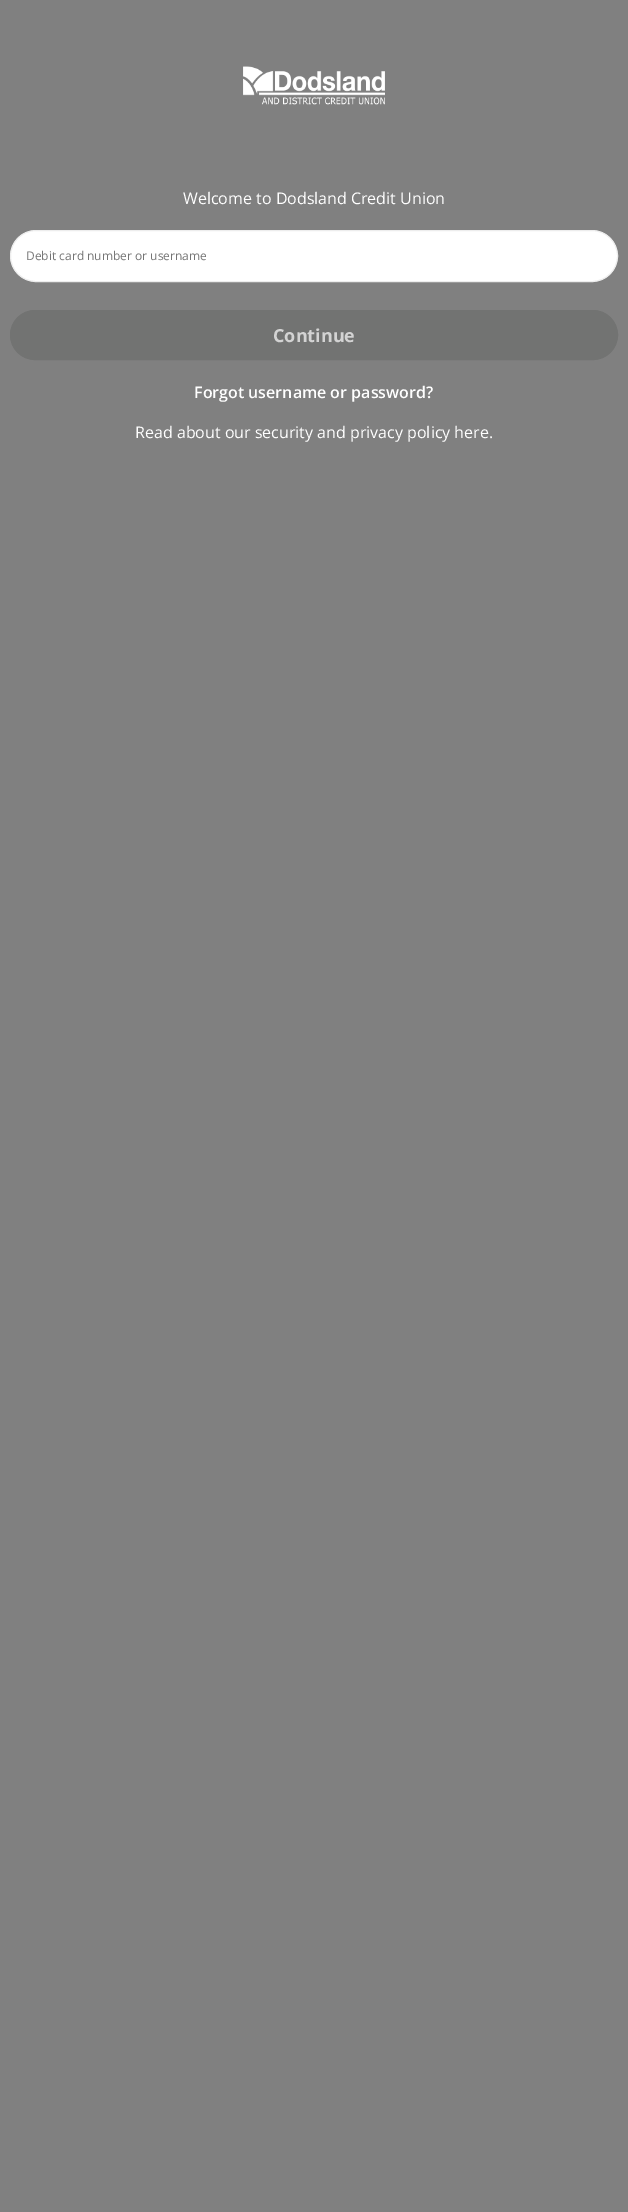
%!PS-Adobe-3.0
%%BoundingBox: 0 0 628 2212
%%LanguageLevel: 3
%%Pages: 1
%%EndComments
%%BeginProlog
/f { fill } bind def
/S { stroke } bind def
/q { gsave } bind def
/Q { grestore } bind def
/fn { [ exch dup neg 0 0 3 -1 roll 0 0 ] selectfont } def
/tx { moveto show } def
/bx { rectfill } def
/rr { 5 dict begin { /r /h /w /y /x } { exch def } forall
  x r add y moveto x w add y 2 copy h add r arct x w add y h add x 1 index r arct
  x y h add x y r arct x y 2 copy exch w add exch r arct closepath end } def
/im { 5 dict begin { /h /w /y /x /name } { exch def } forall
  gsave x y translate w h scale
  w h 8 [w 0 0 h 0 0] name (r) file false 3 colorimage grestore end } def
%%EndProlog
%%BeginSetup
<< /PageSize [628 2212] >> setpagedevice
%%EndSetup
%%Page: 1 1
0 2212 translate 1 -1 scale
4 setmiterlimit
0.502 setgray
0 0 628 2212 bx
(image0.raw) 243 66 142 39 im
/OpenSans-Regular 16 fn
1 setgray
(Welcome to Dodsland Credit Union) 183 204 tx
10.5 230.5 607 51 25.5 rr q f Q
0.929 setgray
S
/OpenSans-Regular 12 fn
0.459 setgray
(Debit card number or username) 26 260 tx
0.447 0.451 0.447 setrgbcolor
10.5 310.5 607 49 24.5 rr q f Q
S
/OpenSans-Bold 18 fn
0.827 setgray
(Continue) 273 342 tx
/OpenSans-SemiBold 16 fn
1 setgray
(Forgot username or password?) 194 398 tx
/OpenSans-Regular 16 fn
(Read about our security and privacy policy here.) 135 438 tx
showpage
%%EOF
